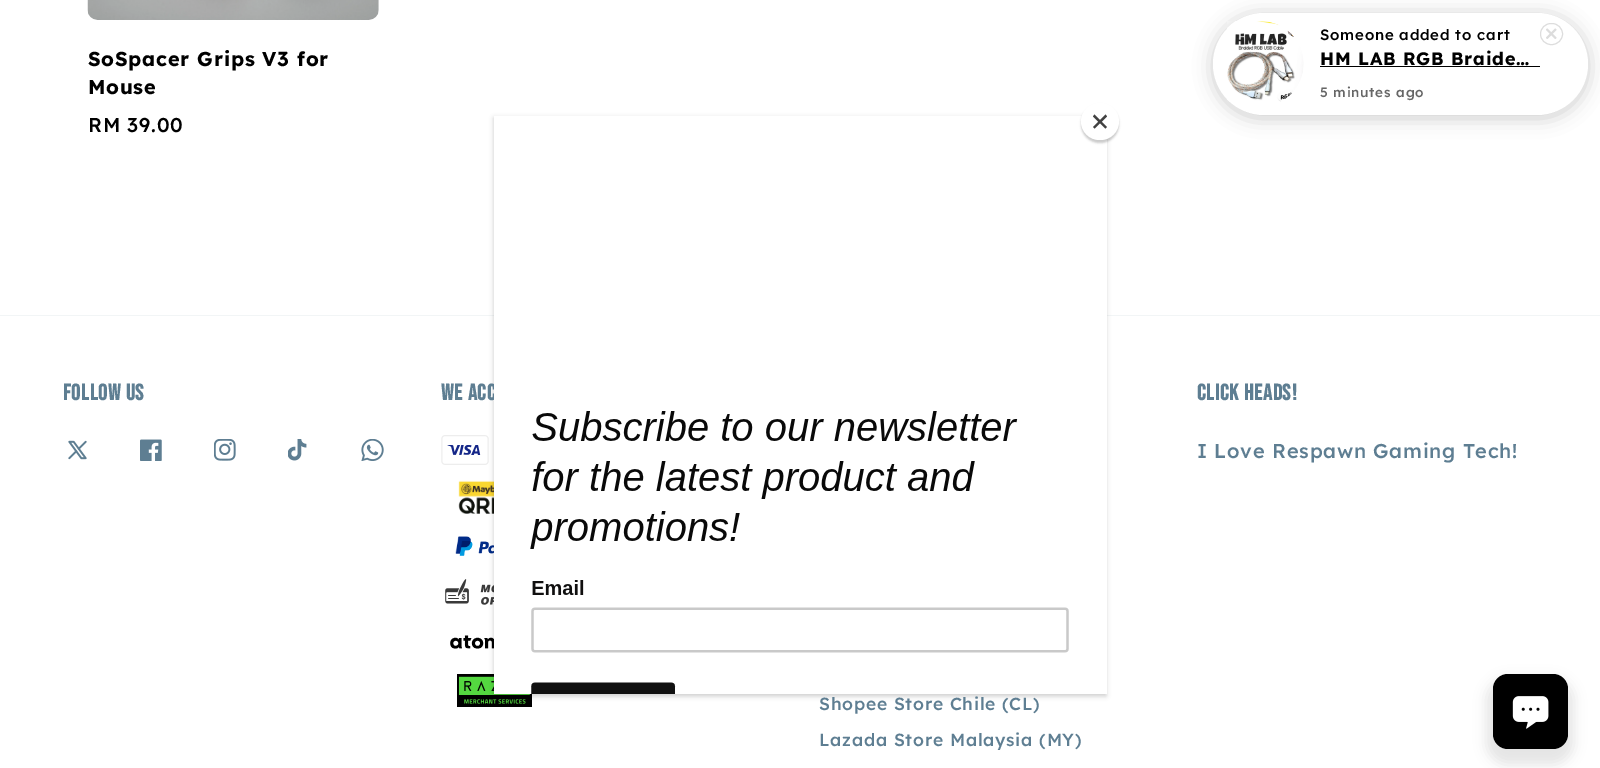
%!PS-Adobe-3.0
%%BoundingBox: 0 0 1600 768
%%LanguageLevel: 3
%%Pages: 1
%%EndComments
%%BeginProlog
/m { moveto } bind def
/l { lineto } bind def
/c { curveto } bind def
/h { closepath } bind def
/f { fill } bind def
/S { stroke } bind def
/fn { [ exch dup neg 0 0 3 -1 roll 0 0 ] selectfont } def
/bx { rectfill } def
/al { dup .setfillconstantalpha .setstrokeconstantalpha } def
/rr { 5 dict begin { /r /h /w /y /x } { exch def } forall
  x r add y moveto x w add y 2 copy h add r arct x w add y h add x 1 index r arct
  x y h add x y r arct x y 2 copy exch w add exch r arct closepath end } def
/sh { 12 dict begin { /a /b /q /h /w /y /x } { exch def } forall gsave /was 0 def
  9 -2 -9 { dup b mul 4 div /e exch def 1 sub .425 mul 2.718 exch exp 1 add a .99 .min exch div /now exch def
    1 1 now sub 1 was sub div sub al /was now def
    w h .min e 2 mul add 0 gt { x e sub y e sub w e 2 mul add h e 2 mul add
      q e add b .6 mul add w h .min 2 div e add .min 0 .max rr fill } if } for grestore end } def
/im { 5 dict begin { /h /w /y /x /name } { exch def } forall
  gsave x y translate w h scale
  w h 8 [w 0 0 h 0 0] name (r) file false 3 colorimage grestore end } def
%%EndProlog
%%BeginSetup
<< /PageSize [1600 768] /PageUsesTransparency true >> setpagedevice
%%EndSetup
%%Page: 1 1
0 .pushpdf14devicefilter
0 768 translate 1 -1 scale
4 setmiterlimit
1 setgray
0 0 1600 768 bx
(image0.raw) 87 0 292 20 im
/Lexend-Bold 20 fn
0 setgray
88 66 m 0.75 0 (SoSpacer Grips V3 for) ashow
88 94 m 0.75 0 (Mouse) ashow
/Lexend-Medium 20 fn
88 132 m 0.75 0 (RM 39.00) ashow
1213 15 375 103 51.5 9.5 0.2 sh
1 setgray
1213 13 375 102 51 rr f
(image1.raw) 1227 21 77 81 im
/Lexend-Medium 15 fn
0 setgray
1320 40 m 0.75 0 (Someone added to cart) ashow
/Lexend-Bold 18 fn
1320 65 m 0.75 0 (HM LAB RGB Braide…) ashow
1320 66 220 1 bx
/Lexend-Medium 13.5 fn
0.4 setgray
1320 97 m 0.75 0 (5 minutes ago) ashow
0.867 setgray
1540.5 23.5 22 21 10.5 rr S
0.863 setgray
1556 29 m 1556.5 29.5 1556.5 30 1556 30.5 c 1548 38.5 l 1547.5 39 1547 39 1546.5 38.5 c 1546 38 1546 37.5 1546.5 37 c 1554.5 29 l 1555 28.5 1555.5 28.5 1556 29 c h f
1546.5 29 m 1547 28.5 1547.5 28.5 1548 29 c 1556 37 l 1556.5 37.5 1556.5 38 1556 38.5 c 1555.5 39 1555 39 1554.5 38.5 c 1546.5 30.5 l 1546 30 1546 29.5 1546.5 29 c h f
0.949 0.961 0.965 setrgbcolor
0 315 1600 1 bx
(image8.raw) 441 435 48 30 im
(image9.raw) 458 480 36 34 im
(image10.raw) 455 536 39 20 im
(image11.raw) 445 579 49 26 im
(image12.raw) 450 635 44 14 im
(image13.raw) 457 674 75 33 im
0 setgray
494 118 612 578 0 2.5 0.2 sh
/BebasNeue-Bold 22.5 fn
0.369 0.494 0.573 setrgbcolor
441 400 m 0.75 0 (We acc) ashow
(image2.raw) 494 116 613 578 im
0 setgray
1081 105 38 38 19 1 0.2 sh
1 setgray
1081 103 38 37 18.5 rr f
0.255 setgray
1105.5 114.5 m 1107 116.5 l 1094.5 128.5 l 1093 127 l h f
1093 116.5 m 1094.5 114.5 l 1107 127 l 1105.5 128.5 l h f
0.369 0.494 0.573 setrgbcolor
63 400 m 0.75 0 (Follow us) ashow
(image3.raw) 68 440 19 20 im
(image4.raw) 140 439 22 22 im
(image5.raw) 214 439 22 22 im
(image6.raw) 288 439 19 22 im
(image7.raw) 361 439 23 22 im
1197 400 m 0.75 0 (Click Heads!) ashow
/Lexend-Medium 20 fn
1197 458 m 0.75 0 (I Love Respawn Gaming Tech!) ashow
/Lexend-Medium 17.5 fn
819 710 m 0.75 0 (Shopee Store Chile \(CL\)) ashow
819 746 m 0.75 0 (Lazada Store Malaysia \(MY\)) ashow
0 setgray
1486 678 88 87 21 6 0.1 sh
1493 674 75 75 15 rr f
(image14.raw) 1512 696 37 33 im
.poppdf14devicefilter showpage
%%EOF
